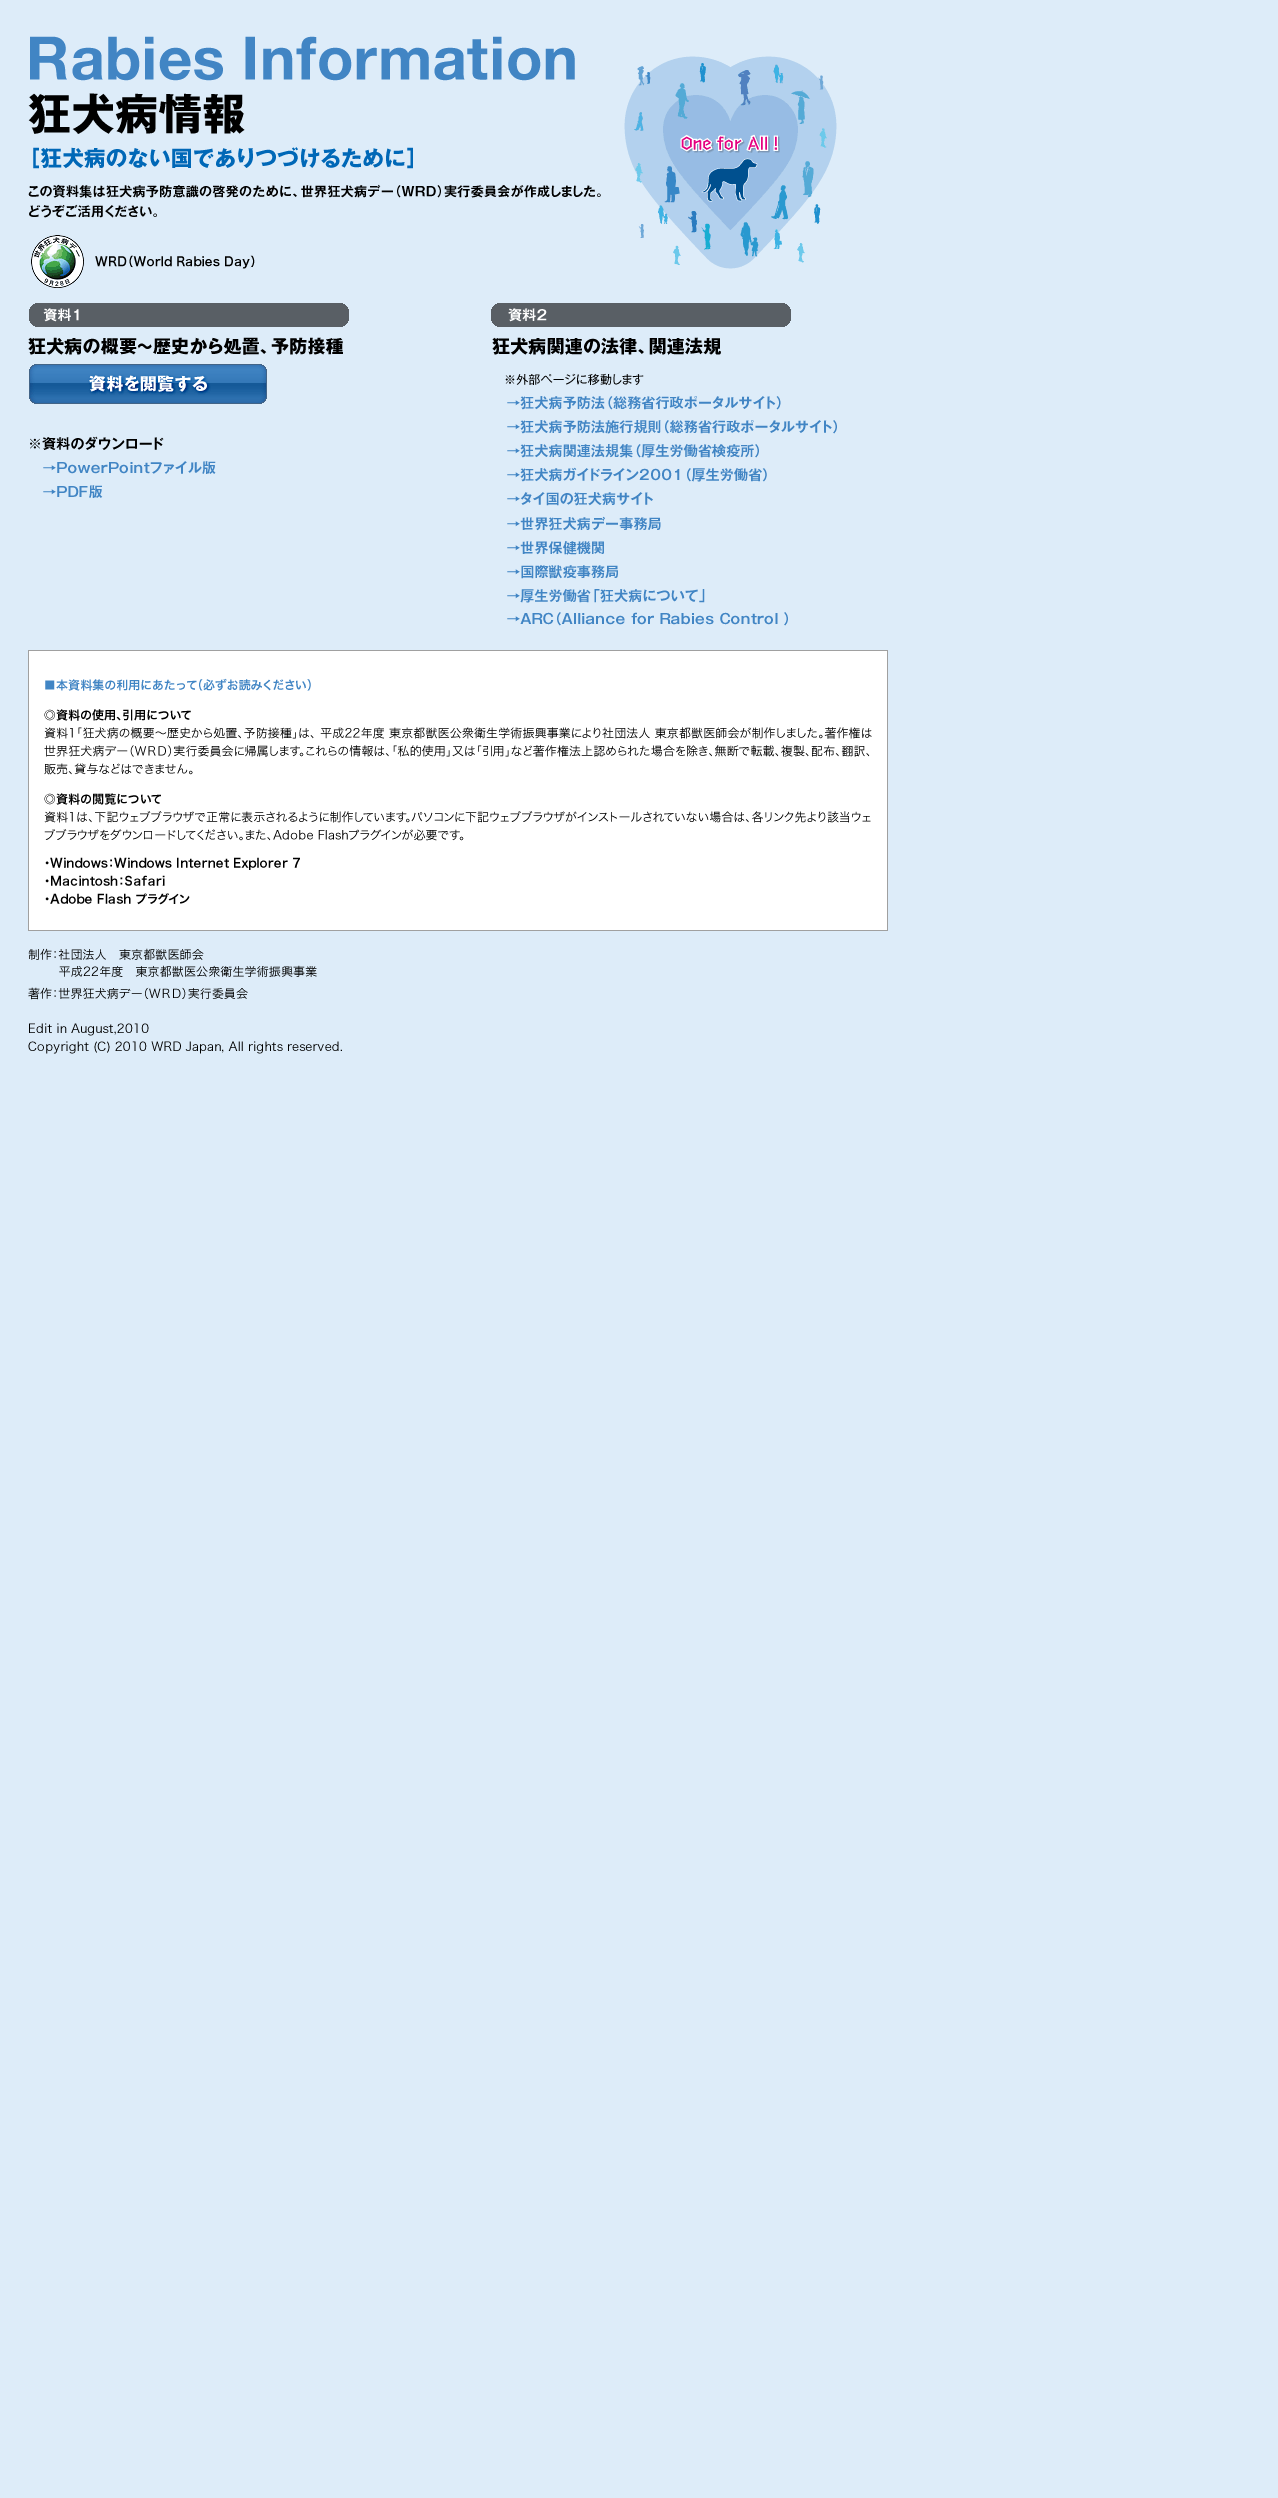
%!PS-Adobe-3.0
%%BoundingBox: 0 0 1278 2498
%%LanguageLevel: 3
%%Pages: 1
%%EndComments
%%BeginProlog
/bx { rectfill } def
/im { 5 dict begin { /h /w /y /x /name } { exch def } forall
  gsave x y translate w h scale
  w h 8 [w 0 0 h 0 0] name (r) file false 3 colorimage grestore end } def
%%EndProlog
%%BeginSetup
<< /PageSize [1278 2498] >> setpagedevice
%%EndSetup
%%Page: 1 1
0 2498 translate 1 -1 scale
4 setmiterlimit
0.867 0.925 0.976 setrgbcolor
0 0 1278 2498 bx
(image0.raw) 28 36 809 252 im
(image1.raw) 28 303 321 52 im
(image2.raw) 29 364 238 40 im
(image3.raw) 30 436 134 14 im
(image4.raw) 43 461 173 13 im
(image5.raw) 43 485 60 13 im
(image6.raw) 491 303 300 82 im
(image7.raw) 507 396 274 14 im
(image8.raw) 507 420 330 14 im
(image9.raw) 507 444 252 14 im
(image10.raw) 507 467 260 15 im
(image11.raw) 507 492 146 14 im
(image12.raw) 507 516 154 15 im
(image13.raw) 507 541 97 14 im
(image14.raw) 507 565 111 14 im
(image15.raw) 507 589 198 14 im
(image16.raw) 507 612 281 14 im
(image17.raw) 28 650 860 201 im
(image18.raw) 28 851 860 22 im
(image19.raw) 28 873 860 18 im
(image20.raw) 28 891 860 19 im
(image21.raw) 28 910 860 90 im
(image22.raw) 28 1023 314 31 im
showpage
%%EOF
